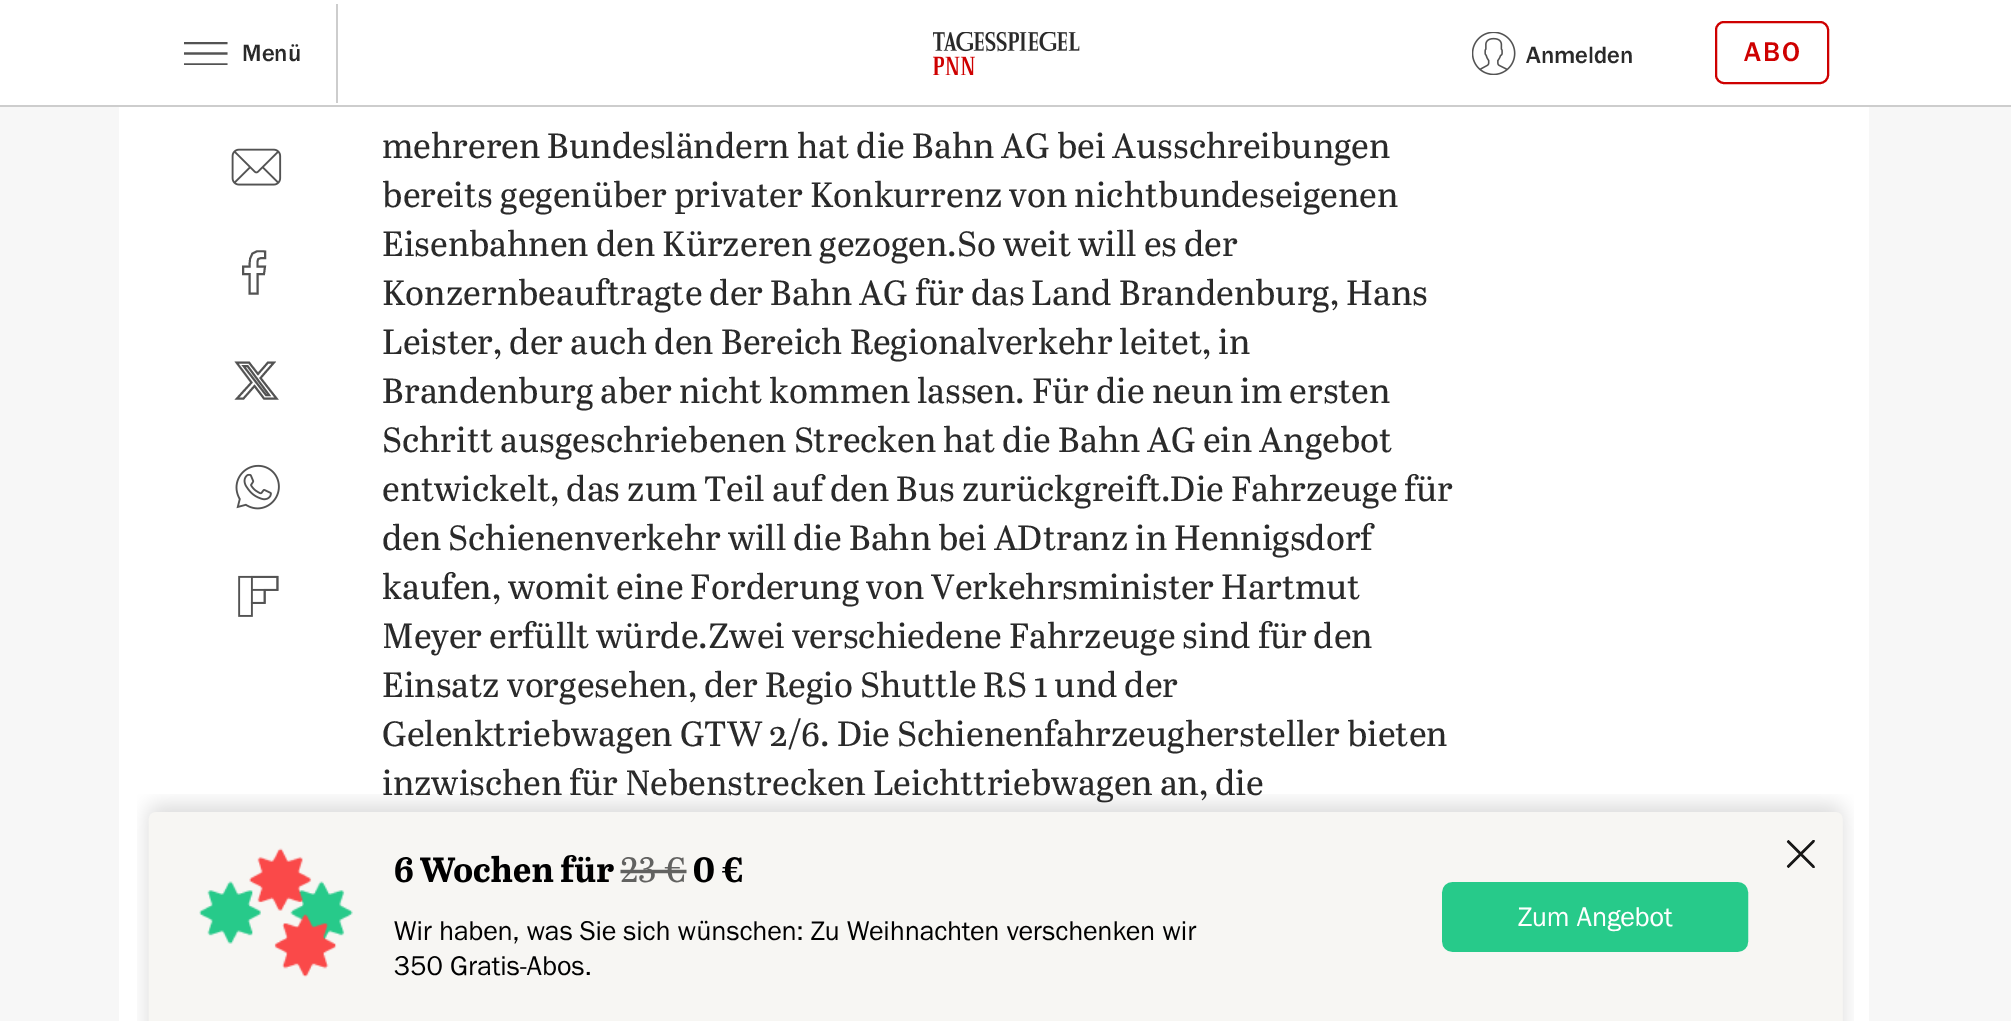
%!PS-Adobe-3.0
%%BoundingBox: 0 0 2011 1021
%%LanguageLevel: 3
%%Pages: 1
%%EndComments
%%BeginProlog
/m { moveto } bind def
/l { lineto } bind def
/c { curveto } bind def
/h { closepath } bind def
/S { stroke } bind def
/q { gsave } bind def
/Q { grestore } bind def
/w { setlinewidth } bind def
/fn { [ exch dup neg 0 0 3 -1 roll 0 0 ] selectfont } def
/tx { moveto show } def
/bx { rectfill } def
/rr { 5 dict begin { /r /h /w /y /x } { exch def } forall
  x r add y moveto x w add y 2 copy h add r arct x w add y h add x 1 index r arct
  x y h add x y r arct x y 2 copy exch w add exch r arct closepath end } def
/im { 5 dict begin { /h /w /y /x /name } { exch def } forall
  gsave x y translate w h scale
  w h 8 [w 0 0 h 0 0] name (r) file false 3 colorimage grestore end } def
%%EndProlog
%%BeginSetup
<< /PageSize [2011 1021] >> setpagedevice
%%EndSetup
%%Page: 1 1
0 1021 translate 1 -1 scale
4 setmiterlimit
0.969 setgray
0 0 2011 1021 bx
1 setgray
1867 107 2 914 bx
119 107 1748 914 bx
0 0 2011 105 bx
0.804 setgray
0 105 2011 2 bx
336 4 2 99 bx
q
184 42 44 23 rectclip
0.325 setgray
2.2 w
184 43 m 227.5 43 l 184 53.5 m 227.5 53.5 l 184 64.5 m 227.5 64.5 l S
Q
/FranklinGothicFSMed-Medium 24.5 fn
0.165 setgray
(Menü) 242 61 tx
(image0.raw) 933 32 147 43 im
(image1.raw) 1472 32 44 43 im
(Anmelden) 1526 63 tx
0.808 0 0 setrgbcolor
2 w
1716 22 112 61 8 rr S
/FranklinGothicFSMed-Medium 28 fn
1744 61 m 2 0 (ABO) ashow
(image2.raw) 231 148 51 38 im
0.325 setgray
1.9 w
257.5 293.5 m 257.5 274 l 264 274 l 265 266.5 l 257.5 266.5 l 257.5 258.5 256.5 258 265 258 c 265 251.5 l 252 249.5 249.5 254 249.5 266.5 c 243 266.5 l 243 274 l 249.5 274 l 249.5 293.5 l h S
268 362.5 m 274 362.5 l 260.5 378 l 276.5 398.5 l 264 398.5 l 254.5 386 l 243.5 398.5 l 237 398.5 l 251.5 382.5 l 236.5 362.5 l 249 362.5 l 258 374 l h 266 395 m 269 395 l 247.5 366 l 243.5 366 l h S
(image3.raw) 235 464 45 46 im
(image4.raw) 238 575 41 42 im
/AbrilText-Regular 35 fn
0.165 setgray
(mehreren Bundesländern hat die Bahn AG bei Ausschreibungen) 382 158 tx
(bereits gegenüber privater Konkurrenz von nichtbundeseigenen) 382 207 tx
(Eisenbahnen den Kürzeren gezogen.So weit will es der) 382 256 tx
(Konzernbeauftragte der Bahn AG für das Land Brandenburg, Hans) 382 305 tx
(Leister, der auch den Bereich Regionalverkehr leitet, in) 382 354 tx
(Brandenburg aber nicht kommen lassen. Für die neun im ersten) 382 403 tx
(Schritt ausgeschriebenen Strecken hat die Bahn AG ein Angebot) 382 452 tx
(entwickelt, das zum Teil auf den Bus zurückgreift.Die Fahrzeuge für) 382 501 tx
(den Schienenverkehr will die Bahn bei ADtranz in Hennigsdorf) 382 550 tx
(kaufen, womit eine Forderung von Verkehrsminister Hartmut) 382 599 tx
(Meyer erfüllt würde.Zwei verschiedene Fahrzeuge sind für den) 382 648 tx
(Einsatz vorgesehen, der Regio Shuttle RS 1 und der) 382 697 tx
(Gelenktriebwagen GTW 2/6. Die Schienenfahrzeughersteller bieten) 382 746 tx
(inzwischen für Nebenstrecken Leichttriebwagen an, die) 382 795 tx
(image5.raw) 137 794 1717 227 im
showpage
%%EOF
